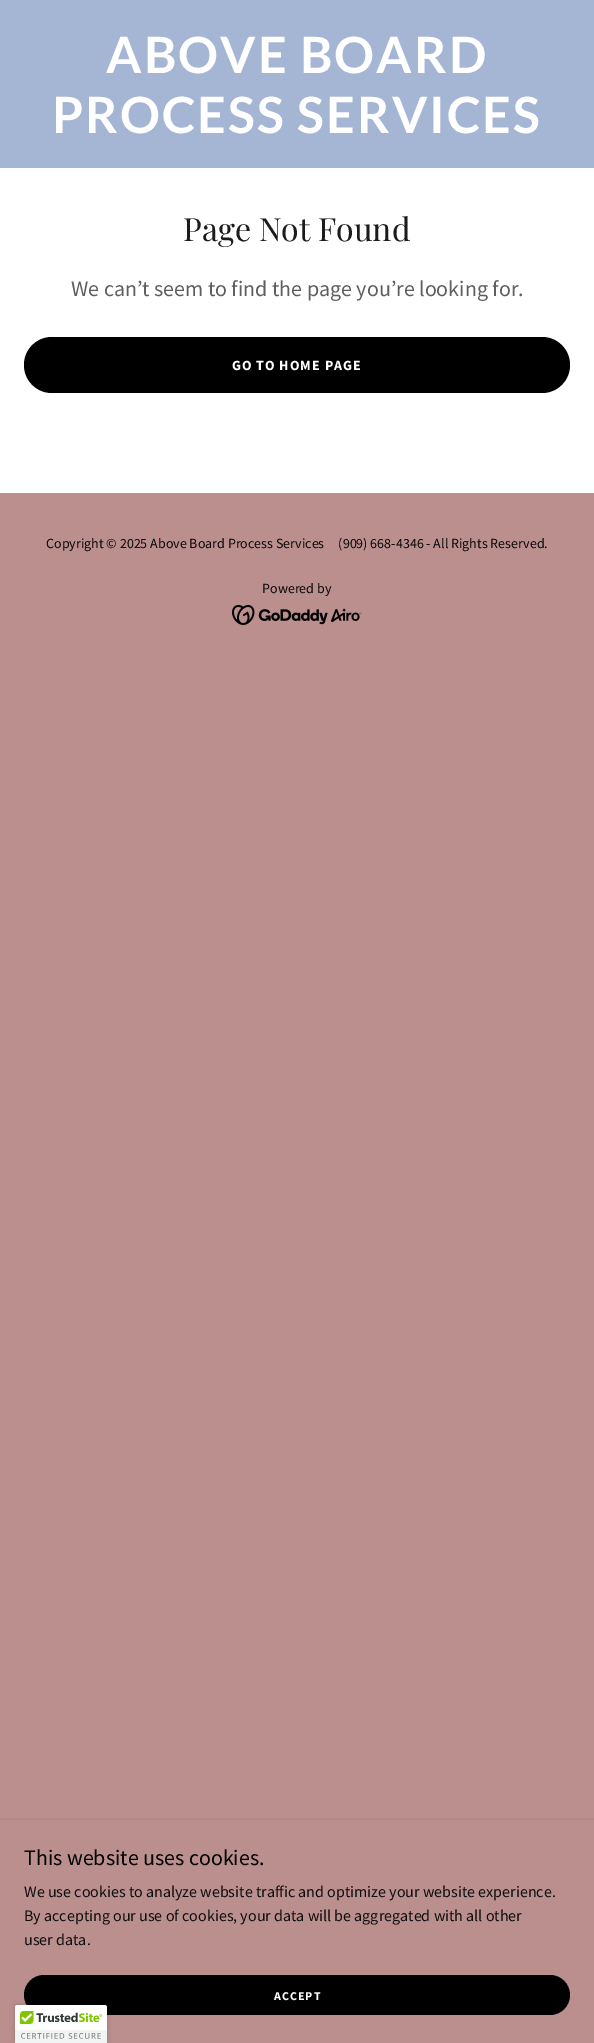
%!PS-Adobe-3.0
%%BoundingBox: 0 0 594 2043
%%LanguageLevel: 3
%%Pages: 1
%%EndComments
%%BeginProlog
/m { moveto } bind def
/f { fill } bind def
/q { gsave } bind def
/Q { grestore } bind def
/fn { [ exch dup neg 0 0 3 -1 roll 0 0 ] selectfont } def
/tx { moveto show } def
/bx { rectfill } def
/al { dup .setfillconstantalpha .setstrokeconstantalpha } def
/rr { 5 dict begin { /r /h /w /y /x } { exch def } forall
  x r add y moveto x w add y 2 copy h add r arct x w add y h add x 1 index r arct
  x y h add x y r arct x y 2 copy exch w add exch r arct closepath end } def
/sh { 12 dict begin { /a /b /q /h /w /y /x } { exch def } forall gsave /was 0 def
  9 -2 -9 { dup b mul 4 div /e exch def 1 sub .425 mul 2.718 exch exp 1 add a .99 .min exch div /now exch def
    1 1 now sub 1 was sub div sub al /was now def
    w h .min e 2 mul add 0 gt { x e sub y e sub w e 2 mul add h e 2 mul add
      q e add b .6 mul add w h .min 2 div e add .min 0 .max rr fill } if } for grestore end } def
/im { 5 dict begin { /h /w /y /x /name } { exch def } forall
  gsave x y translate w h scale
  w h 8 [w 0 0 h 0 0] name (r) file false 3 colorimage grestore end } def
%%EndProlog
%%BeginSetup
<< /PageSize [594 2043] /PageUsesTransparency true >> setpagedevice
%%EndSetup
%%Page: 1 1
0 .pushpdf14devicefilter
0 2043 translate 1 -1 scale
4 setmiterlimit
0.737 0.561 0.561 setrgbcolor
0 0 594 2043 bx
0.647 0.714 0.831 setrgbcolor
0 0 594 168 bx
/Lato-Bold 50 fn
1 setgray
106 73 m 2 0 (ABOVE BOARD) ashow
52 133 m 2 0 (PROCESS SERVICES) ashow
0 168 594 325 bx
/PlayfairDisplay-Regular 32 fn
0.106 setgray
(Page Not Found) 183 241 tx
/SourceSansPro-Regular 22 fn
0.369 setgray
(We can’t seem to find the page you’re looking for.) 71 296 tx
0 setgray
24 337 546 56 28 rr f
/SourceSansPro-Bold 14 fn
1 setgray
232 370 m 1 0 (GO TO HOME PAGE) ashow
/SourceSansPro-Regular 14 fn
0.024 setgray
(Copyright © 2025 Above Board Process Services     \(909\) 668-4346 - All Rights Reserved.) 46 548 tx
(Powered by) 262 593 tx
(image0.raw) 232 605 130 20 im
q
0 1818 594 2 rectclip
0 setgray
0 1822 594 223 0 3 0.3 sh
Q
/SourceSansPro-Regular 22 fn
0 setgray
(This website uses cookies.) 24 1865 tx
/SourceSansPro-Regular 16 fn
0.055 0.051 0.051 setrgbcolor
(We use cookies to analyze website traffic and optimize your website experience.) 24 1897 tx
(By accepting our use of cookies, your data will be aggregated with all other) 24 1921 tx
(user data.) 24 1945 tx
0 setgray
24 1975 546 40 20 rr f
/SourceSansPro-Bold 12 fn
1 setgray
274 2000 m 1 0 (ACCEPT) ashow
0 setgray
15 2005 92 38 2 2.5 0.2 sh
(image1.raw) 15 2005 92 38 im
.poppdf14devicefilter showpage
%%EOF
